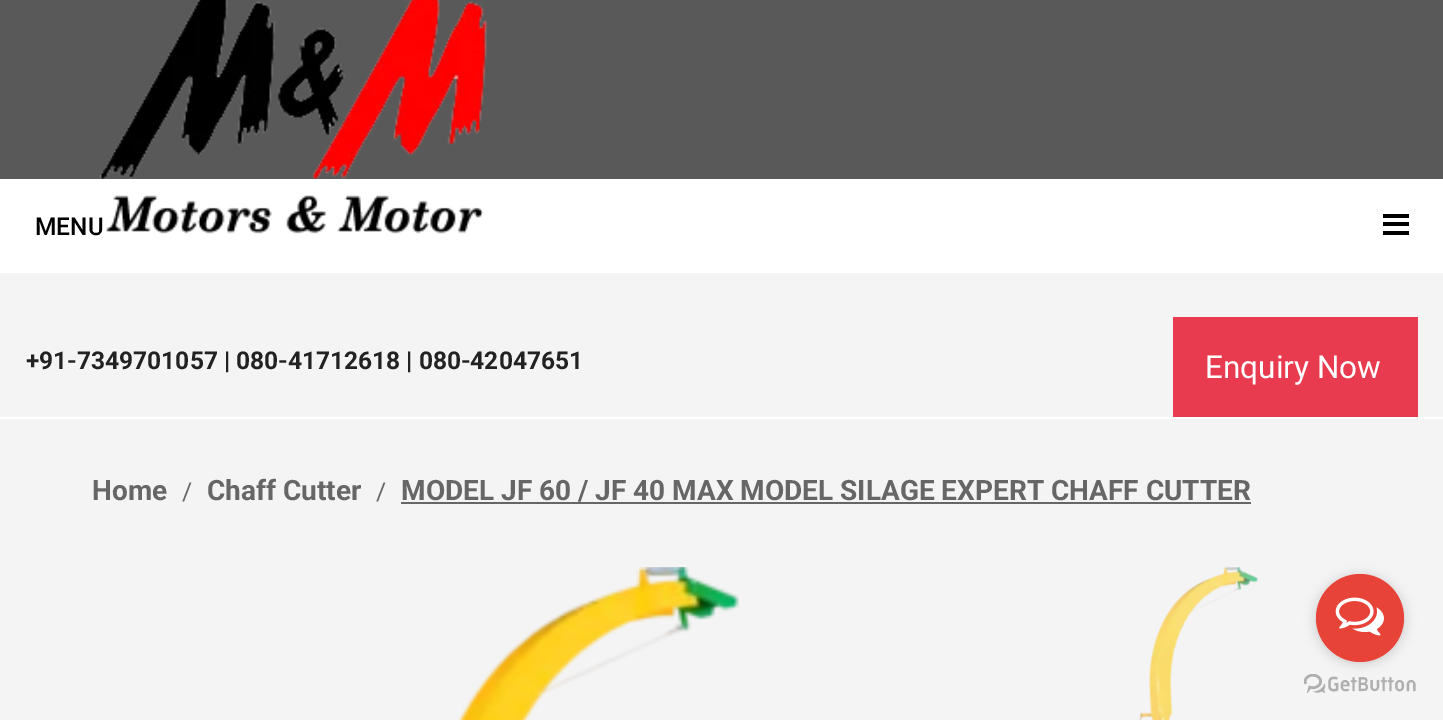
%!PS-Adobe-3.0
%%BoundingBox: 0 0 1443 720
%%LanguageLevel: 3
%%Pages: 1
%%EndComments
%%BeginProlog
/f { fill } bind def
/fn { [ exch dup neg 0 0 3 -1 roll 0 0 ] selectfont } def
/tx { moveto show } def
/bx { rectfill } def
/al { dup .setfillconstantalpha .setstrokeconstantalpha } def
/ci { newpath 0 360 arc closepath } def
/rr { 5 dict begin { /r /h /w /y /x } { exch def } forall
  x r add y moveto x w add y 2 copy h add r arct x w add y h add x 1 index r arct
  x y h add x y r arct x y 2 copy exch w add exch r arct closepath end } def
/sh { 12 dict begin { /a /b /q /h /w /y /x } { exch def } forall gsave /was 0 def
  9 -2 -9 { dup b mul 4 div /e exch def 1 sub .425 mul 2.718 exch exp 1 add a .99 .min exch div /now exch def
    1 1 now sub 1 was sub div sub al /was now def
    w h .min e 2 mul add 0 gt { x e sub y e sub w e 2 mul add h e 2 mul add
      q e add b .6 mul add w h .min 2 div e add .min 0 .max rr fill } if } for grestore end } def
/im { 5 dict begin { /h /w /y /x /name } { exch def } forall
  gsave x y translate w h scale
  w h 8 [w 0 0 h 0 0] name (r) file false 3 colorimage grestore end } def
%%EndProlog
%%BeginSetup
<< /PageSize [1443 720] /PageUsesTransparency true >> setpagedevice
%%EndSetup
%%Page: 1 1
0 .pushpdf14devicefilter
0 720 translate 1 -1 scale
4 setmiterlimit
0.957 setgray
0 0 1443 720 bx
0.349 setgray
0 0 1443 179 bx
1 setgray
0 179 1443 94 bx
/Roboto-Medium 24.5 fn
0 setgray
(MENU) 35 235 tx
(image0.raw) 99 0 388 234 im
1383 214 26 4 bx
1383 222 26 4 bx
1383 231 26 4 bx
1 setgray
0 417 1443 2 bx
/Roboto-Bold 24.5 fn
0.133 setgray
(+91-7349701057 | 080-41712618 | 080-42047651) 26 369 tx
0.91 0.231 0.31 setrgbcolor
1173 317 245 100 bx
/Roboto-Regular 31.5 fn
1 setgray
(Enquiry Now) 1205 378 tx
/Roboto-Bold 28 fn
0.4 setgray
(Home) 92 500 tx
/Roboto-Regular 24.5 fn
(/) 182 500 tx
/Roboto-Bold 28 fn
(Chaff Cutter) 207 500 tx
/Roboto-Regular 24.5 fn
(/) 376 500 tx
/Roboto-Bold 28 fn
(MODEL JF 60 / JF 40 MAX MODEL SILAGE EXPERT CHAFF CUTTER) 401 500 tx
401 502 850 2 bx
(image1.raw) 458 567 281 153 im
(image2.raw) 1139 567 119 153 im
(image4.raw) 1304 674 112 19 im
0.533 setgray
1316 576 88 87 43.5 6 0.4 sh
0.906 0.263 0.224 setrgbcolor
1360 618 44 ci f
(image3.raw) 1335 597 49 39 im
.poppdf14devicefilter showpage
%%EOF
